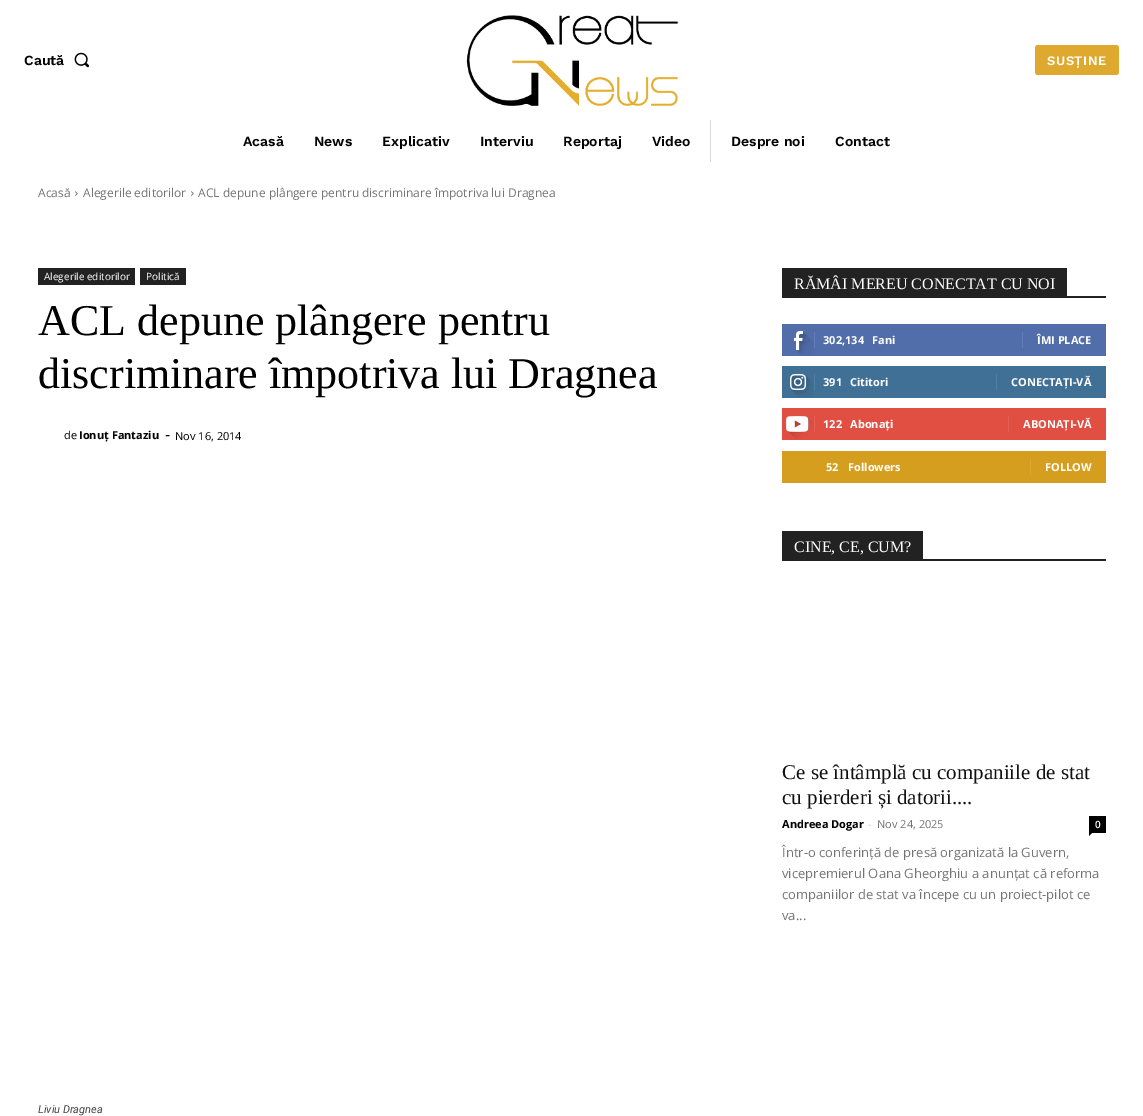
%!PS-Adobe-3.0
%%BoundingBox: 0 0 1143 1116
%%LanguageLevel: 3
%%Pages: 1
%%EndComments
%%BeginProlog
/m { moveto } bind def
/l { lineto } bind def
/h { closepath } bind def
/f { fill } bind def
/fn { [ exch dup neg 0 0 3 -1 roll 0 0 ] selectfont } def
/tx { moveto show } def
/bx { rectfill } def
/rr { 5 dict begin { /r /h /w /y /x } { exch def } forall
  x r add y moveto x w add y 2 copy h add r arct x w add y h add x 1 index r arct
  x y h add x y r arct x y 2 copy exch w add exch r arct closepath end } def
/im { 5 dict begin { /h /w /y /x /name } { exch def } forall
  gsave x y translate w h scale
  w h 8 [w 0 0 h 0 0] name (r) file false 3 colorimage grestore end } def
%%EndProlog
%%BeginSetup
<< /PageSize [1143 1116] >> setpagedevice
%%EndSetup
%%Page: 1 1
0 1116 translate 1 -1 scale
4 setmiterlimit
1 setgray
0 0 1143 1116 bx
/WorkSans-SemiBold 14 fn
0 setgray
(Caută) 24 65 tx
(image0.raw) 74 52 16 16 im
(image1.raw) 466 15 213 91 im
0.871 0.663 0.18 setrgbcolor
1035 45 84 30 3 rr f
/WorkSans-SemiBold 13 fn
1 setgray
1047 65 m 0.5 0 (SUSȚINE) ashow
/WorkSans-SemiBold 14 fn
0 setgray
(Acasă) 243 146 tx
(News) 314 146 tx
(Explicativ) 382 146 tx
(Interviu) 480 146 tx
(Reportaj) 563 146 tx
0.863 0.847 0.847 setrgbcolor
710 120 1 42 bx
0 setgray
(Video) 652 146 tx
(Despre noi) 731 146 tx
(Contact) 835 146 tx
/OpenSans-Regular 12 fn
0.455 setgray
(Acasă) 38 197 tx
(image2.raw) 75 191 3 5 im
(Alegerile editorilor) 83 197 tx
(image2.raw) 191 191 3 5 im
(ACL depune plângere pentru discriminare împotriva lui Dragnea) 198 197 tx
0.133 setgray
38 268 97 17 bx
/OpenSans-Regular 10 fn
1 setgray
(Alegerile editorilor) 44 280 tx
0.133 setgray
140 268 46 17 bx
1 setgray
(Politică) 146 280 tx
/LiberationSerif-Regular 44 fn
0 setgray
(ACL depune plângere pentru) 38 335 tx
(discriminare împotriva lui Dragnea) 38 388 tx
/OpenSans-Regular 11 fn
(de) 64 439 tx
/OpenSans-Bold 11 fn
(Ionuț Fantaziu) 79 439 tx
/OpenSans-Regular 16 fn
(-) 165 440 tx
/OpenSans-Regular 11 fn
(Nov 16, 2014) 175 440 tx
/Roboto-Italic 11 fn
0.267 setgray
(Liviu Dragnea) 38 1113 tx
0.133 setgray
782 296 324 2 bx
782 268 285 28 bx
/LiberationSerif-Regular 16 fn
1 setgray
(RĂMÂI MEREU CONECTAT CU NOI) 794 289 tx
0.318 0.431 0.671 setrgbcolor
782 324 324 32 bx
(image3.raw) 794 331 20 25 im
0.384 0.49 0.702 setrgbcolor
814 332 1 16 bx
/OpenSans-Bold 11 fn
1 setgray
(302,134) 823 344 tx
(Fani) 872 344 tx
0.384 0.49 0.702 setrgbcolor
1022 332 1 16 bx
1 setgray
(ÎMI PLACE) 1037 344 tx
0.255 0.439 0.588 setrgbcolor
782 366 324 32 bx
(image4.raw) 790 374 23 23 im
0.329 0.494 0.631 setrgbcolor
814 374 1 16 bx
1 setgray
(391) 823 386 tx
(Cititori) 850 386 tx
0.329 0.494 0.631 setrgbcolor
996 374 1 16 bx
1 setgray
(CONECTAȚI-VĂ) 1011 386 tx
0.882 0.306 0.259 setrgbcolor
782 408 324 32 bx
(image5.raw) 786 416 27 24 im
0.894 0.376 0.333 setrgbcolor
814 416 1 16 bx
1 setgray
(122) 823 428 tx
(Abonați) 850 428 tx
0.894 0.376 0.333 setrgbcolor
1008 416 1 16 bx
1 setgray
(ABONAȚI-VĂ) 1023 428 tx
0.835 0.62 0.122 setrgbcolor
782 451 324 32 bx
1 setgray
(52) 826 471 tx
(Followers) 848 471 tx
0.851 0.659 0.208 setrgbcolor
1030 459 1 16 bx
1 setgray
(FOLLOW) 1045 471 tx
0.133 setgray
782 559 324 2 bx
782 531 141 28 bx
/LiberationSerif-Regular 16 fn
1 setgray
(CINE, CE, CUM?) 794 552 tx
/LiberationSerif-Regular 21 fn
0.067 setgray
(Ce se întâmplă cu companiile de stat) 782 779 tx
(cu pierderi și datorii....) 782 804 tx
/OpenSans-Bold 11 fn
0 setgray
(Andreea Dogar) 782 828 tx
/OpenSans-Regular 11 fn
0.8 setgray
(-) 868 828 tx
0.455 setgray
(Nov 24, 2025) 877 828 tx
0 setgray
1089 816 17 17 bx
/OpenSans-SemiBold 10 fn
1 setgray
(0) 1095 828 tx
0 setgray
1089 833 m 1092 833 l 1089 836 l h f
/OpenSans-Regular 13 fn
0.455 setgray
(Într-o conferință de presă organizată la Guvern,) 782 857 tx
(vicepremierul Oana Gheorghiu a anunțat că reforma) 782 878 tx
(companiilor de stat va începe cu un proiect-pilot ce) 782 899 tx
(va...) 782 920 tx
showpage
%%EOF
